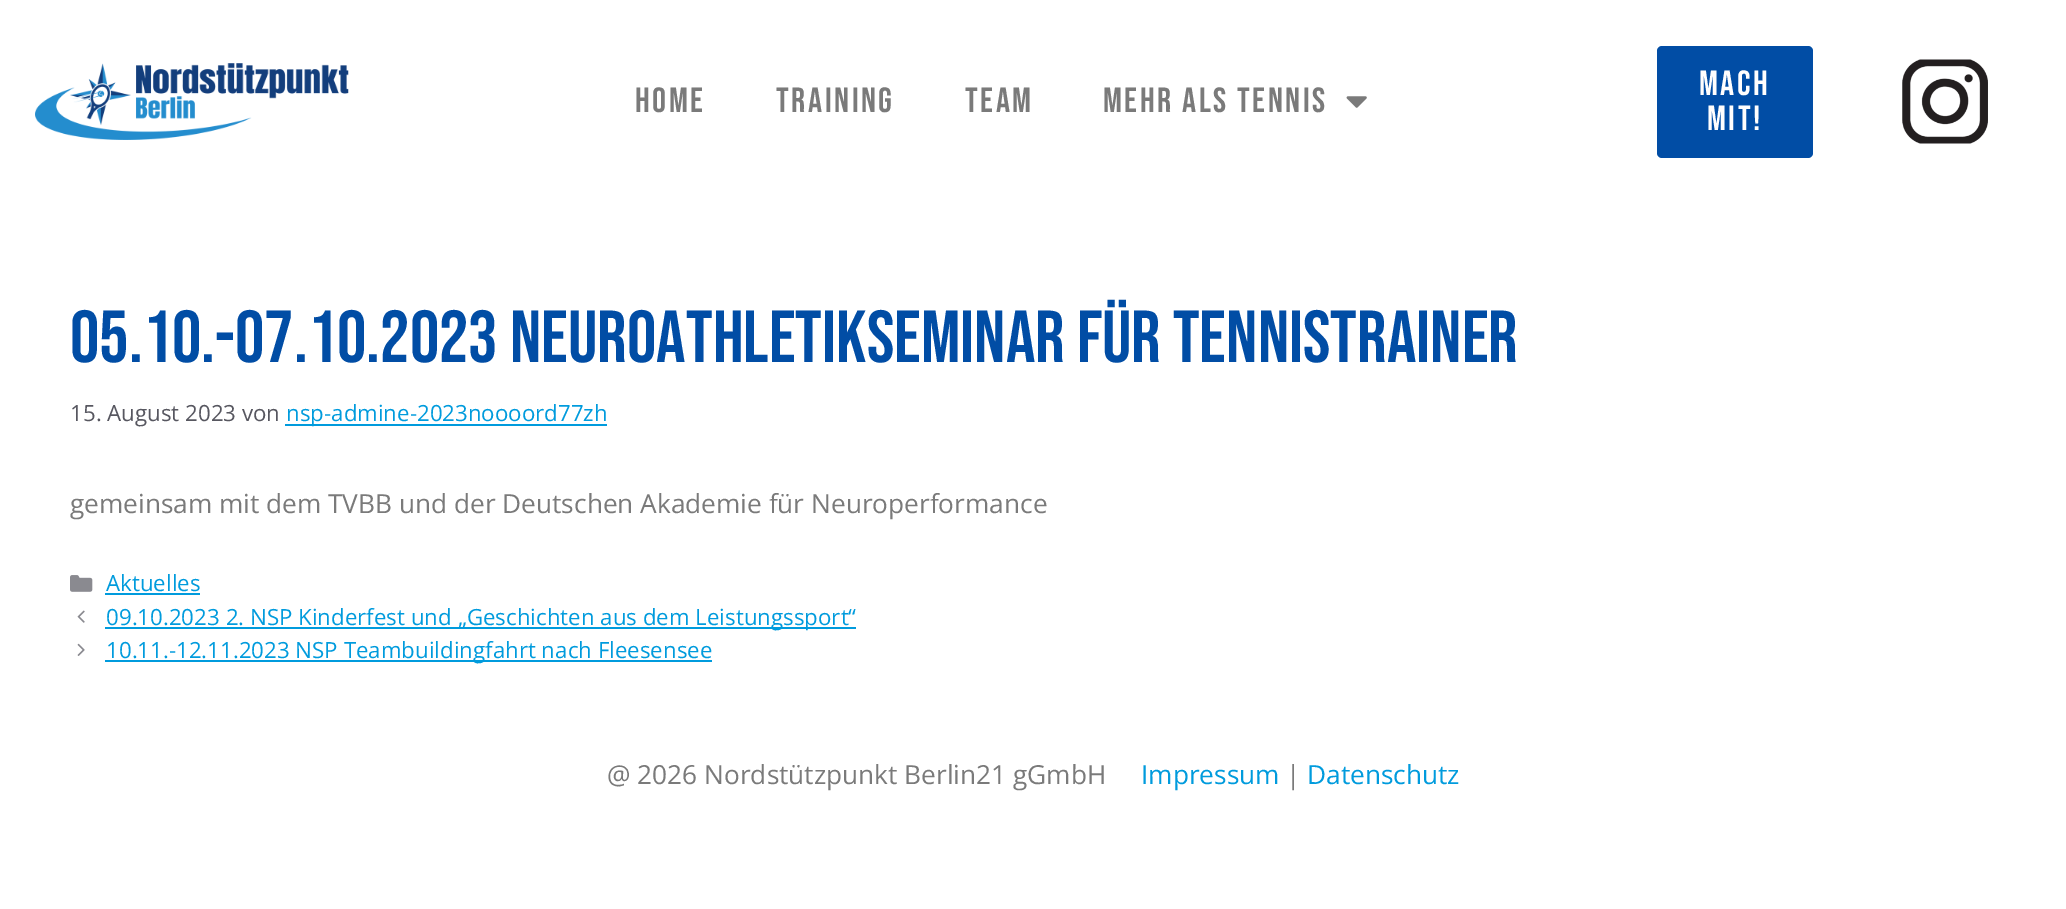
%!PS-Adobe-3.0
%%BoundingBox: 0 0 2066 909
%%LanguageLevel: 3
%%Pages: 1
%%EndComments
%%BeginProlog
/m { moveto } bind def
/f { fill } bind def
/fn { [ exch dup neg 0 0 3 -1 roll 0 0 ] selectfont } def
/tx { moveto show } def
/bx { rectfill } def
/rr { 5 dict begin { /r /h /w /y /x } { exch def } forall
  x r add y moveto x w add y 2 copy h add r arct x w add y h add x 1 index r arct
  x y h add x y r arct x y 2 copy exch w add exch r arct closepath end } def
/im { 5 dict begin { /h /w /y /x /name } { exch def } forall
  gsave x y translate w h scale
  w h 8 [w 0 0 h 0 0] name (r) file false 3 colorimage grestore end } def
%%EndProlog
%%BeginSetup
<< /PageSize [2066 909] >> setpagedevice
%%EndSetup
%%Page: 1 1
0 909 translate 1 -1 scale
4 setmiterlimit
1 setgray
0 0 2066 909 bx
(image0.raw) 35 63 314 77 im
/BebasNeue-Regular 35 fn
0.478 setgray
635 112 m 2.6 0 (Home) ashow
776 112 m 2.6 0 (Training) ashow
965 112 m 2.6 0 (Team) ashow
1103 112 m 2.6 0 (Mehr als Tennis) ashow
(image1.raw) 1346 96 21 12 im
0.004 0.302 0.647 setrgbcolor
1657 46 156 112 5 rr f
1 0.996 0.996 setrgbcolor
1699 95 m 2.6 0 (Mach) ashow
1707 130 m 2.6 0 (mit!) ashow
(image2.raw) 1902 59 86 85 im
/BebasNeue-Regular 73.5 fn
0.004 0.302 0.647 setrgbcolor
(05.10.-07.10.2023 Neuroathletikseminar für Tennistrainer) 70 362 tx
/OpenSans-Regular 22.3 fn
0.341 0.341 0.376 setrgbcolor
(15. August 2023 von) 70 421 tx
0 0.608 0.867 setrgbcolor
285 424 322 2 bx
(nsp-admine-2023noooord77zh) 286 421 tx
/OpenSans-Regular 26.25 fn
0.478 setgray
(gemeinsam mit dem TVBB und der Deutschen Akademie für Neuroperformance) 70 513 tx
(image3.raw) 70 575 23 17 im
/OpenSans-Regular 22.3 fn
0 0.608 0.867 setrgbcolor
(Aktuelles) 106 591 tx
105 593 95 2 bx
(image4.raw) 77 610 8 13 im
105 627 751 2 bx
(09.10.2023 2. NSP Kinderfest und „Geschichten aus dem Leistungssport“) 106 625 tx
(image5.raw) 77 643 8 13 im
105 660 607 2 bx
(10.11.-12.11.2023 NSP Teambuildingfahrt nach Fleesensee) 106 658 tx
/OpenSans-Regular 26.25 fn
0.478 setgray
(@ 2026 Nordstützpunkt Berlin21 gGmbH) 607 784 tx
0 0.608 0.867 setrgbcolor
(Impressum) 1141 784 tx
0.478 setgray
(|) 1286 784 tx
0 0.608 0.867 setrgbcolor
(Datenschutz) 1307 784 tx
showpage
%%EOF
